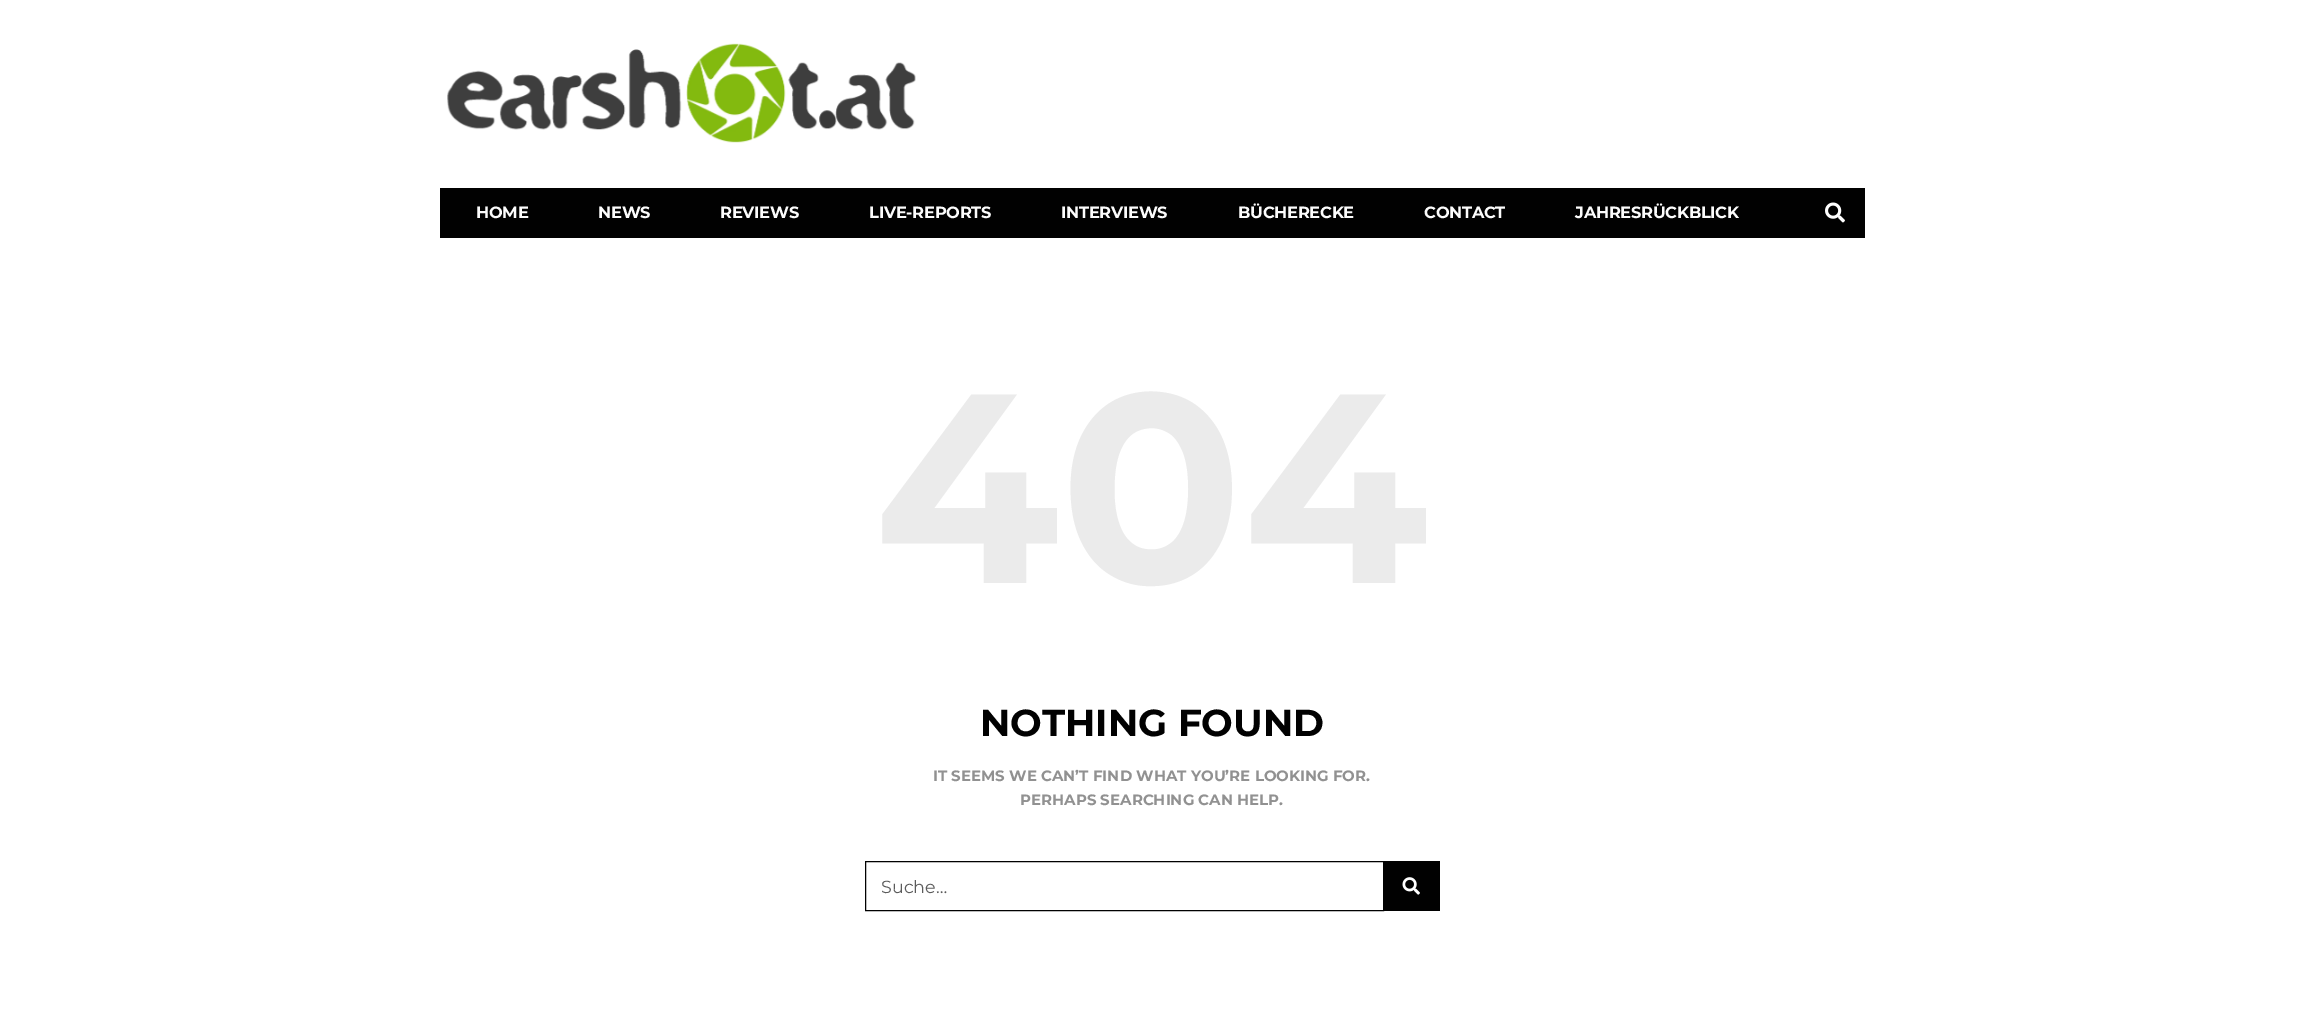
%!PS-Adobe-3.0
%%BoundingBox: 0 0 2303 1031
%%LanguageLevel: 3
%%Pages: 1
%%EndComments
%%BeginProlog
/m { moveto } bind def
/fn { [ exch dup neg 0 0 3 -1 roll 0 0 ] selectfont } def
/tx { moveto show } def
/bx { rectfill } def
/im { 5 dict begin { /h /w /y /x /name } { exch def } forall
  gsave x y translate w h scale
  w h 8 [w 0 0 h 0 0] name (r) file false 3 colorimage grestore end } def
%%EndProlog
%%BeginSetup
<< /PageSize [2303 1031] >> setpagedevice
%%EndSetup
%%Page: 1 1
0 1031 translate 1 -1 scale
4 setmiterlimit
1 setgray
0 0 2303 1031 bx
(image0.raw) 447 43 469 100 im
0.004 setgray
440 188 1425 50 bx
/Montserrat-Bold 16.25 fn
0.988 setgray
476 218 m -0.25 0 (HOME) ashow
598 218 m -0.25 0 (NEWS) ashow
720 218 m -0.25 0 (REVIEWS) ashow
869 218 m -0.25 0 (LIVE-REPORTS) ashow
1061 218 m -0.25 0 (INTERVIEWS) ashow
1238 218 m -0.25 0 (BÜCHERECKE) ashow
1424 218 m -0.25 0 (CONTACT) ashow
1575 218 m -0.25 0 (JAHRESRÜCKBLICK) ashow
(image1.raw) 1825 202 20 21 im
/Montserrat-Bold 270 fn
0.922 setgray
(404) 874 583 tx
/Montserrat-Bold 37.5 fn
0.004 setgray
(NOTHING FOUND) 980 736 tx
/Montserrat-Bold 15 fn
0.569 setgray
(IT SEEMS WE CAN’T FIND WHAT YOU’RE LOOKING FOR.) 933 781 tx
(PERHAPS SEARCHING CAN HELP.) 1020 805 tx
0.004 setgray
865.5 861.5 518 49 rectstroke
/Montserrat-Regular 17.5 fn
0.357 setgray
(Suche…) 881 893 tx
0.004 setgray
1384 861 56 50 bx
(image2.raw) 1402 877 18 18 im
showpage
%%EOF
